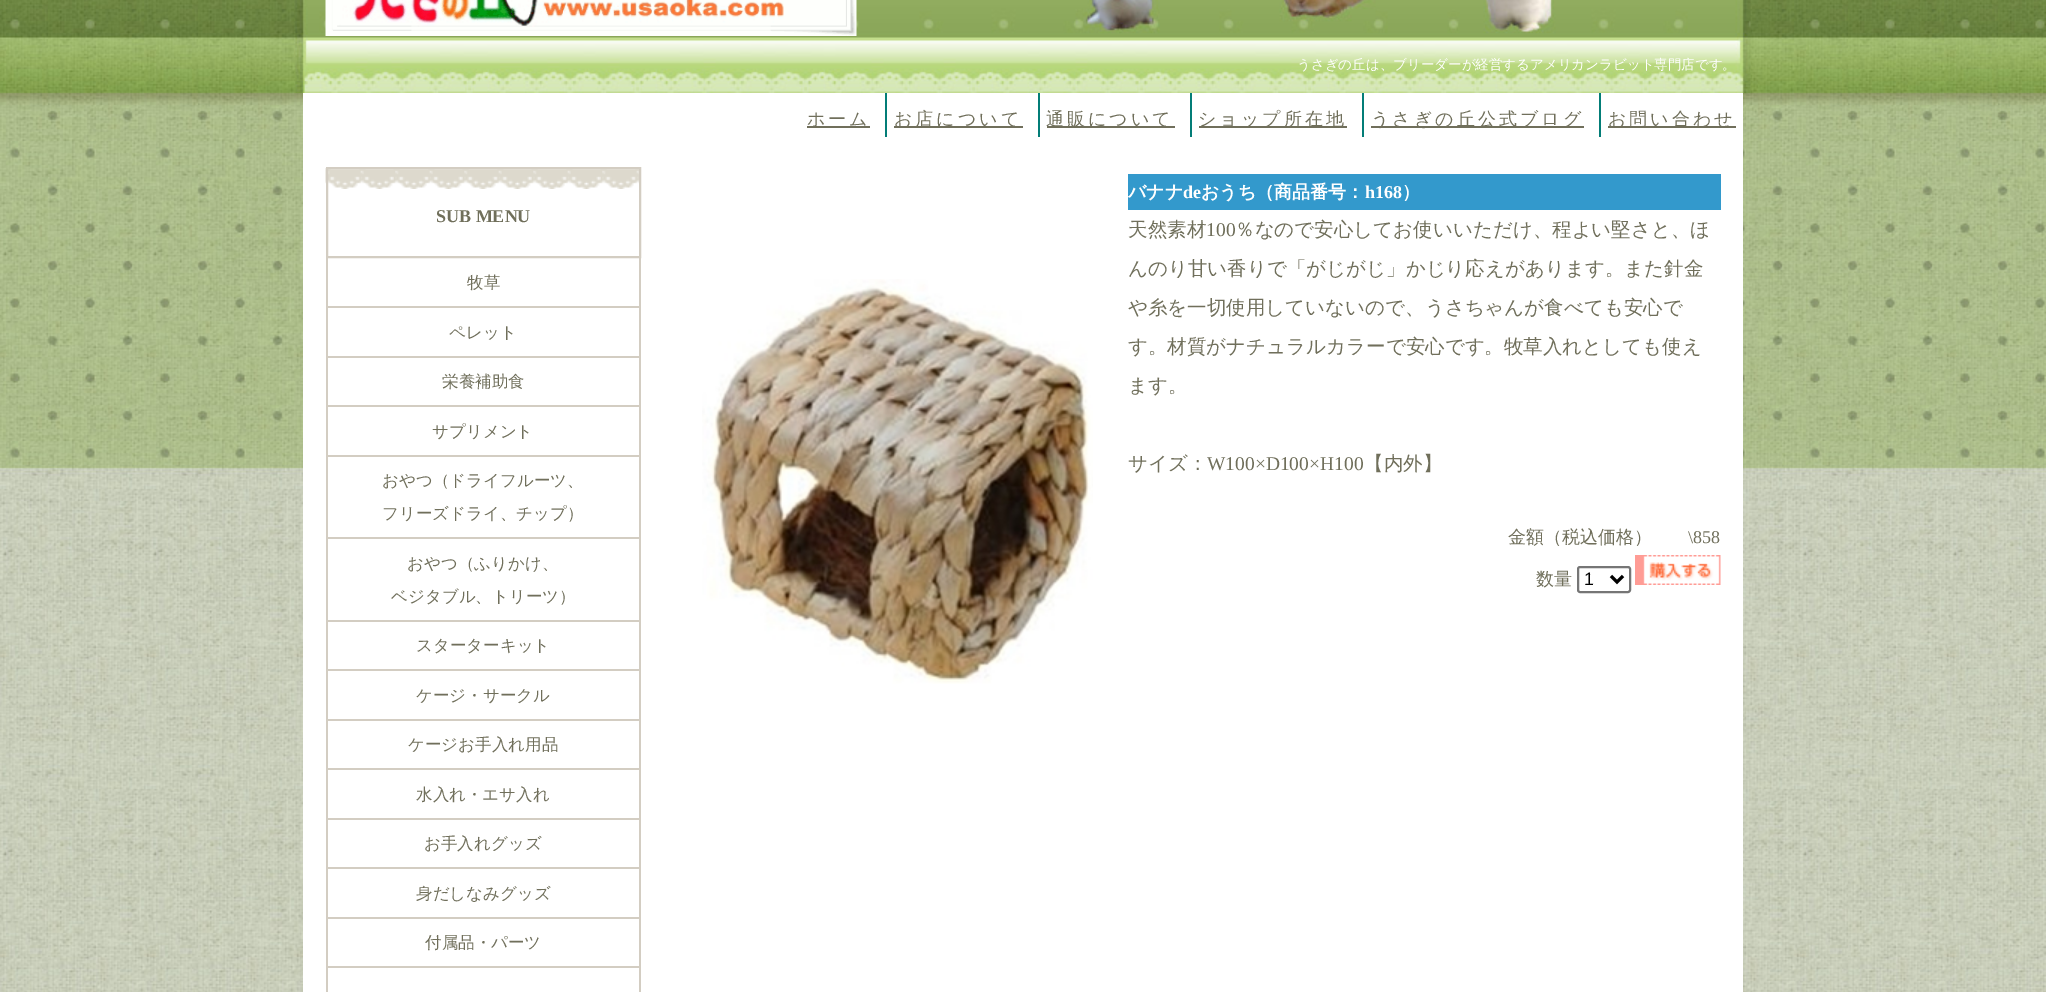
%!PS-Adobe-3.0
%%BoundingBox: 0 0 2046 992
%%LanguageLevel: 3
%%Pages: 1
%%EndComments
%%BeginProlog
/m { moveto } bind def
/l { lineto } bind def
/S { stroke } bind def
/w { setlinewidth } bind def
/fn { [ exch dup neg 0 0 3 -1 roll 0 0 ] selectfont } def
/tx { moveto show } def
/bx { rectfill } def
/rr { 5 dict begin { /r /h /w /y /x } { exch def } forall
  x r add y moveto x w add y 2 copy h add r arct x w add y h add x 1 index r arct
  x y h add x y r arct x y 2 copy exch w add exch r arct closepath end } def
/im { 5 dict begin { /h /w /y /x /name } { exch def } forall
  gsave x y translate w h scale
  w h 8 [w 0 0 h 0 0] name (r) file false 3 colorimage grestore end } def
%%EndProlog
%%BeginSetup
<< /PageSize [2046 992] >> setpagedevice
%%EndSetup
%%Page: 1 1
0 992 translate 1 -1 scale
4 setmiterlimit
1 setgray
0 0 2046 992 bx
(image0.raw) 0 0 2046 992 im
(image1.raw) 295 0 1456 93 im
(image2.raw) 325 0 532 36 im
/WenQuanYiZenHei-Medium 13.5 fn
(うさぎの丘は、ブリーダーが経営するアメリカンラビット専門店です。) 1297 69 tx
303 93 1440 899 bx
0.439 0.435 0.357 setrgbcolor
807 126 63 2 bx
/WenQuanYiZenHei-Medium 18 fn
807 125 m 3 0 (ホーム) ashow
0.012 0.49 0.467 setrgbcolor
885 93 2 44 bx
0.439 0.435 0.357 setrgbcolor
894 126 129 2 bx
894 125 m 3 0 (お店について) ashow
0.012 0.49 0.467 setrgbcolor
1038 93 2 44 bx
0.439 0.435 0.357 setrgbcolor
1047 126 128 2 bx
1046 125 m 3 0 (通販について) ashow
0.012 0.49 0.467 setrgbcolor
1190 93 2 44 bx
0.439 0.435 0.357 setrgbcolor
1199 126 148 2 bx
1198 125 m 3 0 (ショップ所在地) ashow
0.012 0.49 0.467 setrgbcolor
1362 93 2 44 bx
0.439 0.435 0.357 setrgbcolor
1371 126 213 2 bx
1371 125 m 3 0 (うさぎの丘公式ブログ) ashow
0.012 0.49 0.467 setrgbcolor
1599 93 2 44 bx
0.439 0.435 0.357 setrgbcolor
1608 126 128 2 bx
1608 125 m 3 0 (お問い合わせ) ashow
(image3.raw) 325 168 314 21 im
0.827 0.804 0.761 setrgbcolor
2 w
327 168 313 89 rectstroke
/LiberationSerif-Bold 18 fn
0.439 0.435 0.357 setrgbcolor
(SUB MENU) 436 222 tx
0.827 0.804 0.761 setrgbcolor
639 258 2 99 bx
326 306 315 2 bx
326 258 2 50 bx
/WenQuanYiZenHei-Medium 16.5 fn
0.439 0.435 0.357 setrgbcolor
(牧草) 467 288 tx
0.827 0.804 0.761 setrgbcolor
326 356 315 2 bx
326 308 2 49 bx
0.439 0.435 0.357 setrgbcolor
(ペレット) 449 338 tx
0.827 0.804 0.761 setrgbcolor
639 357 2 99 bx
326 405 315 2 bx
326 357 2 50 bx
0.439 0.435 0.357 setrgbcolor
(栄養補助食) 442 387 tx
0.827 0.804 0.761 setrgbcolor
326 455 315 2 bx
326 407 2 49 bx
0.439 0.435 0.357 setrgbcolor
(サプリメント) 432 437 tx
0.827 0.804 0.761 setrgbcolor
639 456 2 165 bx
326 537 315 2 bx
326 456 2 83 bx
0.439 0.435 0.357 setrgbcolor
(おやつ（ドライフルーツ、) 382 486 tx
(フリーズドライ、チップ）) 382 519 tx
0.827 0.804 0.761 setrgbcolor
326 620 315 2 bx
326 539 2 82 bx
0.439 0.435 0.357 setrgbcolor
(おやつ（ふりかけ、) 407 569 tx
(ベジタブル、トリーツ）) 391 602 tx
0.827 0.804 0.761 setrgbcolor
639 621 2 99 bx
326 669 315 2 bx
326 621 2 50 bx
0.439 0.435 0.357 setrgbcolor
(スターターキット) 416 651 tx
0.827 0.804 0.761 setrgbcolor
326 719 315 2 bx
326 671 2 49 bx
0.439 0.435 0.357 setrgbcolor
(ケージ・サークル) 416 701 tx
0.827 0.804 0.761 setrgbcolor
639 720 2 99 bx
326 768 315 2 bx
326 720 2 50 bx
0.439 0.435 0.357 setrgbcolor
(ケージお手入れ用品) 408 750 tx
0.827 0.804 0.761 setrgbcolor
326 818 315 2 bx
326 770 2 49 bx
0.439 0.435 0.357 setrgbcolor
(水入れ・エサ入れ) 416 800 tx
0.827 0.804 0.761 setrgbcolor
639 819 2 99 bx
326 867 315 2 bx
326 819 2 50 bx
0.439 0.435 0.357 setrgbcolor
(お手入れグッズ) 424 849 tx
0.827 0.804 0.761 setrgbcolor
326 917 315 2 bx
326 869 2 49 bx
0.439 0.435 0.357 setrgbcolor
(身だしなみグッズ) 416 899 tx
0.827 0.804 0.761 setrgbcolor
639 918 2 74 bx
326 966 315 2 bx
326 918 2 74 bx
0.439 0.435 0.357 setrgbcolor
(付属品・パーツ) 425 948 tx
(image4.raw) 702 279 391 405 im
0.2 0.6 0.8 setrgbcolor
1128 174 593 36 bx
/WenQuanYiZenHei-Bold 18 fn
1 setgray
(バナナ) 1128 198 tx
/LiberationSerif-Bold 18 fn
(de) 1183 198 tx
/WenQuanYiZenHei-Bold 18 fn
(おうち（商品番号：) 1201 198 tx
/LiberationSerif-Bold 18 fn
(h168) 1365 198 tx
/WenQuanYiZenHei-Bold 18 fn
(）) 1402 198 tx
/WenQuanYiZenHei-Medium 19.5 fn
0.439 0.435 0.357 setrgbcolor
(天然素材) 1128 236 tx
/LiberationSerif-Regular 19.5 fn
(100) 1206 236 tx
/WenQuanYiZenHei-Medium 19.5 fn
(％なので安心してお使いいただけ、程よい堅さと、ほ) 1235 236 tx
(んのり甘い香りで「がじがじ」かじり応えがあります。また針金) 1128 275 tx
(や糸を一切使用していないので、うさちゃんが食べても安心で) 1128 314 tx
(す。材質がナチュラルカラーで安心です。牧草入れとしても使え) 1128 353 tx
(ます。) 1128 392 tx
(サイズ：) 1128 470 tx
/LiberationSerif-Regular 19.5 fn
(W100×D100×H100) 1207 470 tx
/WenQuanYiZenHei-Medium 19.5 fn
(【内外】) 1364 470 tx
/WenQuanYiZenHei-Medium 18 fn
(金額（税込価格）) 1508 543 tx
/LiberationSerif-Regular 18 fn
(\\858) 1688 543 tx
/WenQuanYiZenHei-Medium 18 fn
(数量) 1536 585 tx
0.463 setgray
1578 567 52 25 2 rr S
0 setgray
3 w
1611 576 m 1617 582 l 1623 576 l S
/LiberationSans-Regular 18 fn
(1) 1584 585 tx
(image5.raw) 1635 555 86 30 im
showpage
%%EOF
